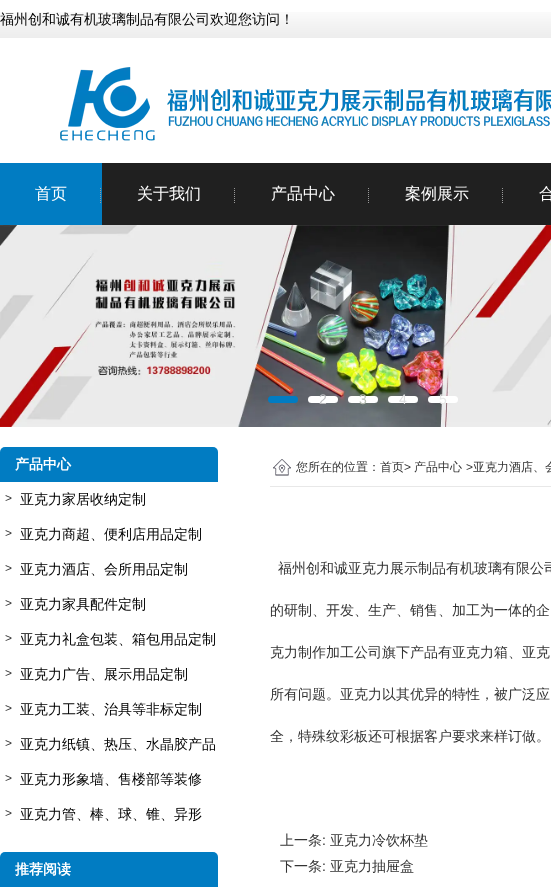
<!DOCTYPE html>
<meta charset="utf-8">
<style>body { margin: 0 } canvas { display: block }</style>
<canvas id="canvas" width="551" height="889"></canvas>
<img id="img1" src="images/1.png" hidden>
<img id="img2" src="images/2.png" hidden>
<img id="img3" src="images/3.png" hidden>
<img id="img4" src="images/4.png" hidden>
<script>
window.onload = function () {
    const canvas = document.getElementById('canvas');
    const context = canvas.getContext('2d');
    context.miterLimit = 4;
    context.fontKerning = 'normal';

    context.fillStyle = 'rgb(255, 255, 255)';
    context.fillRect(0, 0, 551, 889);
    context.drawImage(document.getElementById('img1'), 0, 12, 551, 26);
    context.drawImage(document.getElementById('img2'), 60, 67, 491, 74);
    context.fillStyle = 'rgb(32, 32, 32)';
    context.fillRect(102, 163, 449, 62);
    context.fillStyle = 'rgb(1, 124, 194)';
    context.fillRect(0, 163, 102, 62);
    context.beginPath();
    context.moveTo(100.5, 188);
    context.lineTo(100.5, 203);
    context.strokeStyle = 'rgb(153, 153, 153)';
    context.setLineDash([1, 1]);
    context.stroke();
    context.beginPath();
    context.moveTo(234.5, 188);
    context.lineTo(234.5, 203);
    context.stroke();
    context.beginPath();
    context.moveTo(368.5, 188);
    context.lineTo(368.5, 203);
    context.stroke();
    context.beginPath();
    context.moveTo(502.5, 188);
    context.lineTo(502.5, 203);
    context.stroke();
    context.drawImage(document.getElementById('img3'), 0, 225, 551, 202);
    context.beginPath();
    context.roundRect(268, 396, 30, 7, 3.5);
    context.fill();
    context.fillStyle = 'rgb(255, 255, 255)';
    context.beginPath();
    context.roundRect(308, 396, 30, 7, 3.5);
    context.fill();
    context.beginPath();
    context.roundRect(348, 396, 30, 7, 3.5);
    context.fill();
    context.beginPath();
    context.roundRect(388, 396, 30, 7, 3.5);
    context.fill();
    context.beginPath();
    context.roundRect(428, 396, 30, 7, 3.5);
    context.fill();
    context.fillStyle = 'rgb(1, 124, 194)';
    context.beginPath();
    context.roundRect(0, 447, 218, 35, [5, 5, 0, 0]);
    context.fill();
    context.beginPath();
    context.roundRect(0, 852, 218, 35, [5, 5, 0, 0]);
    context.fill();
    context.drawImage(document.getElementById('img4'), 273, 459, 18, 17);
    context.fillStyle = 'rgb(232, 232, 232)';
    context.fillRect(270, 486, 281, 1);
    context.font = '500 14px WenQuanYi Zen Hei';
    context.fillStyle = 'rgb(0, 0, 0)';
    context.fillText('福州创和诚有机玻璃制品有限公司欢迎您访问！', 0, 24);
    context.font = '500 16px WenQuanYi Zen Hei';
    context.fillStyle = 'rgb(255, 255, 255)';
    context.fillText('首页', 35, 199);
    context.fillText('关于我们', 137, 199);
    context.fillText('产品中心', 271, 199);
    context.fillText('案例展示', 405, 199);
    context.fillText('合', 539, 199);
    context.font = '14px Liberation Sans';
    context.fillStyle = 'rgb(186, 187, 190)';
    context.fillText('2', 319, 404);
    context.fillStyle = 'rgb(185, 192, 180)';
    context.fillText('3', 359, 404);
    context.fillStyle = 'rgb(221, 222, 223)';
    context.fillText('4', 399, 404);
    context.fillStyle = 'rgb(230, 230, 230)';
    context.fillText('5', 439, 404);
    context.font = 'bold 14px WenQuanYi Zen Hei';
    context.fillStyle = 'rgb(255, 255, 255)';
    context.fillText('产品中心', 15, 469);
    context.font = '12px Liberation Sans';
    context.fillStyle = 'rgb(51, 51, 51)';
    context.fillText('>', 5, 502);
    context.font = '500 14px WenQuanYi Zen Hei';
    context.fillStyle = 'rgb(0, 0, 0)';
    context.fillText('亚克力家居收纳定制', 20, 504);
    context.font = '12px Liberation Sans';
    context.fillStyle = 'rgb(51, 51, 51)';
    context.fillText('>', 5, 537);
    context.font = '500 14px WenQuanYi Zen Hei';
    context.fillStyle = 'rgb(0, 0, 0)';
    context.fillText('亚克力商超、便利店用品定制', 20, 539);
    context.font = '12px Liberation Sans';
    context.fillStyle = 'rgb(51, 51, 51)';
    context.fillText('>', 5, 572);
    context.font = '500 14px WenQuanYi Zen Hei';
    context.fillStyle = 'rgb(0, 0, 0)';
    context.fillText('亚克力酒店、会所用品定制', 20, 574);
    context.font = '12px Liberation Sans';
    context.fillStyle = 'rgb(51, 51, 51)';
    context.fillText('>', 5, 607);
    context.font = '500 14px WenQuanYi Zen Hei';
    context.fillStyle = 'rgb(0, 0, 0)';
    context.fillText('亚克力家具配件定制', 20, 609);
    context.font = '12px Liberation Sans';
    context.fillStyle = 'rgb(51, 51, 51)';
    context.fillText('>', 5, 642);
    context.font = '500 14px WenQuanYi Zen Hei';
    context.fillStyle = 'rgb(0, 0, 0)';
    context.fillText('亚克力礼盒包装、箱包用品定制', 20, 644);
    context.font = '12px Liberation Sans';
    context.fillStyle = 'rgb(51, 51, 51)';
    context.fillText('>', 5, 677);
    context.font = '500 14px WenQuanYi Zen Hei';
    context.fillStyle = 'rgb(0, 0, 0)';
    context.fillText('亚克力广告、展示用品定制', 20, 679);
    context.font = '12px Liberation Sans';
    context.fillStyle = 'rgb(51, 51, 51)';
    context.fillText('>', 5, 712);
    context.font = '500 14px WenQuanYi Zen Hei';
    context.fillStyle = 'rgb(0, 0, 0)';
    context.fillText('亚克力工装、治具等非标定制', 20, 714);
    context.font = '12px Liberation Sans';
    context.fillStyle = 'rgb(51, 51, 51)';
    context.fillText('>', 5, 747);
    context.font = '500 14px WenQuanYi Zen Hei';
    context.fillStyle = 'rgb(0, 0, 0)';
    context.fillText('亚克力纸镇、热压、水晶胶产品', 20, 749);
    context.font = '12px Liberation Sans';
    context.fillStyle = 'rgb(51, 51, 51)';
    context.fillText('>', 5, 782);
    context.font = '500 14px WenQuanYi Zen Hei';
    context.fillStyle = 'rgb(0, 0, 0)';
    context.fillText('亚克力形象墙、售楼部等装修', 20, 784);
    context.font = '12px Liberation Sans';
    context.fillStyle = 'rgb(51, 51, 51)';
    context.fillText('>', 5, 817);
    context.font = '500 14px WenQuanYi Zen Hei';
    context.fillStyle = 'rgb(0, 0, 0)';
    context.fillText('亚克力管、棒、球、锥、异形', 20, 819);
    context.font = 'bold 14px WenQuanYi Zen Hei';
    context.fillStyle = 'rgb(255, 255, 255)';
    context.fillText('推荐阅读', 15, 874);
    context.font = '500 12px WenQuanYi Zen Hei';
    context.fillStyle = 'rgb(51, 51, 51)';
    context.fillText('您所在的位置：首页', 296, 471);
    context.font = '12px Liberation Sans';
    context.fillText('>', 404, 471);
    context.font = '500 12px WenQuanYi Zen Hei';
    context.fillText('产品中心', 414, 471);
    context.font = '12px Liberation Sans';
    context.fillText('>', 466, 471);
    context.font = '500 12px WenQuanYi Zen Hei';
    context.fillText('亚克力酒店、会', 473, 471);
    context.font = '500 14px WenQuanYi Zen Hei';
    context.fillText('福州创和诚亚克力展示制品有机玻璃有限公司', 278, 573);
    context.fillText('的研制、开发、生产、销售、加工为一体的企', 270, 615);
    context.fillText('克力制作加工公司旗下产品有亚克力箱、亚克', 270, 657);
    context.fillText('所有问题。亚克力以其优异的特性，被广泛应', 270, 699);
    context.fillText('全，特殊纹彩板还可根据客户要求来样订做。', 270, 741);
    context.fillText('上一条', 280, 845);
    context.font = '14px Liberation Sans';
    context.fillText(':', 322, 845);
    context.font = '500 14px WenQuanYi Zen Hei';
    context.fillText('亚克力冷饮杯垫', 330, 845);
    context.fillText('下一条', 280, 871);
    context.font = '14px Liberation Sans';
    context.fillText(':', 322, 871);
    context.font = '500 14px WenQuanYi Zen Hei';
    context.fillText('亚克力抽屉盒', 330, 871);
};
</script>
